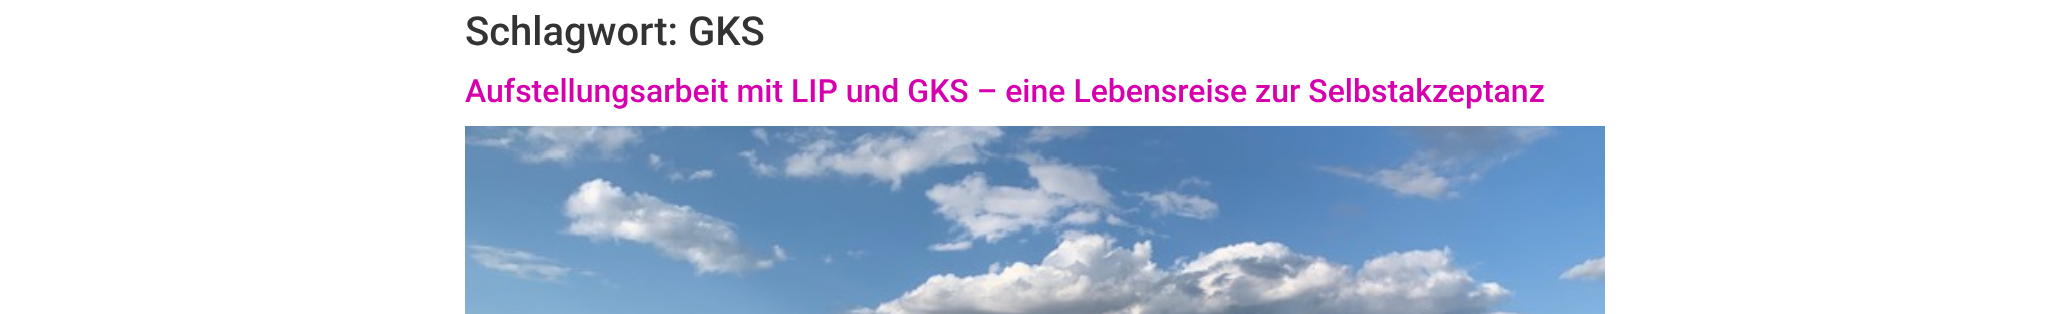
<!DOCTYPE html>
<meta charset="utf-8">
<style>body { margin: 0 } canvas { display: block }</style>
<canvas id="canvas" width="2070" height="314"></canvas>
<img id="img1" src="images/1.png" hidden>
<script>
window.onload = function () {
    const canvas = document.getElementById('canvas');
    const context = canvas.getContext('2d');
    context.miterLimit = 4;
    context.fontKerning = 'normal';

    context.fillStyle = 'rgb(255, 255, 255)';
    context.fillRect(0, 0, 2070, 314);
    context.drawImage(document.getElementById('img1'), 465, 126, 1140, 188);
    context.font = '500 40px Roboto';
    context.fillStyle = 'rgb(51, 51, 51)';
    context.fillText('Schlagwort: GKS', 465, 45);
    context.font = '500 32px Roboto';
    context.fillStyle = 'rgb(214, 0, 174)';
    context.fillText('Aufstellungsarbeit mit LIP und GKS – eine Lebensreise zur Selbstakzeptanz', 465, 102);
};
</script>
